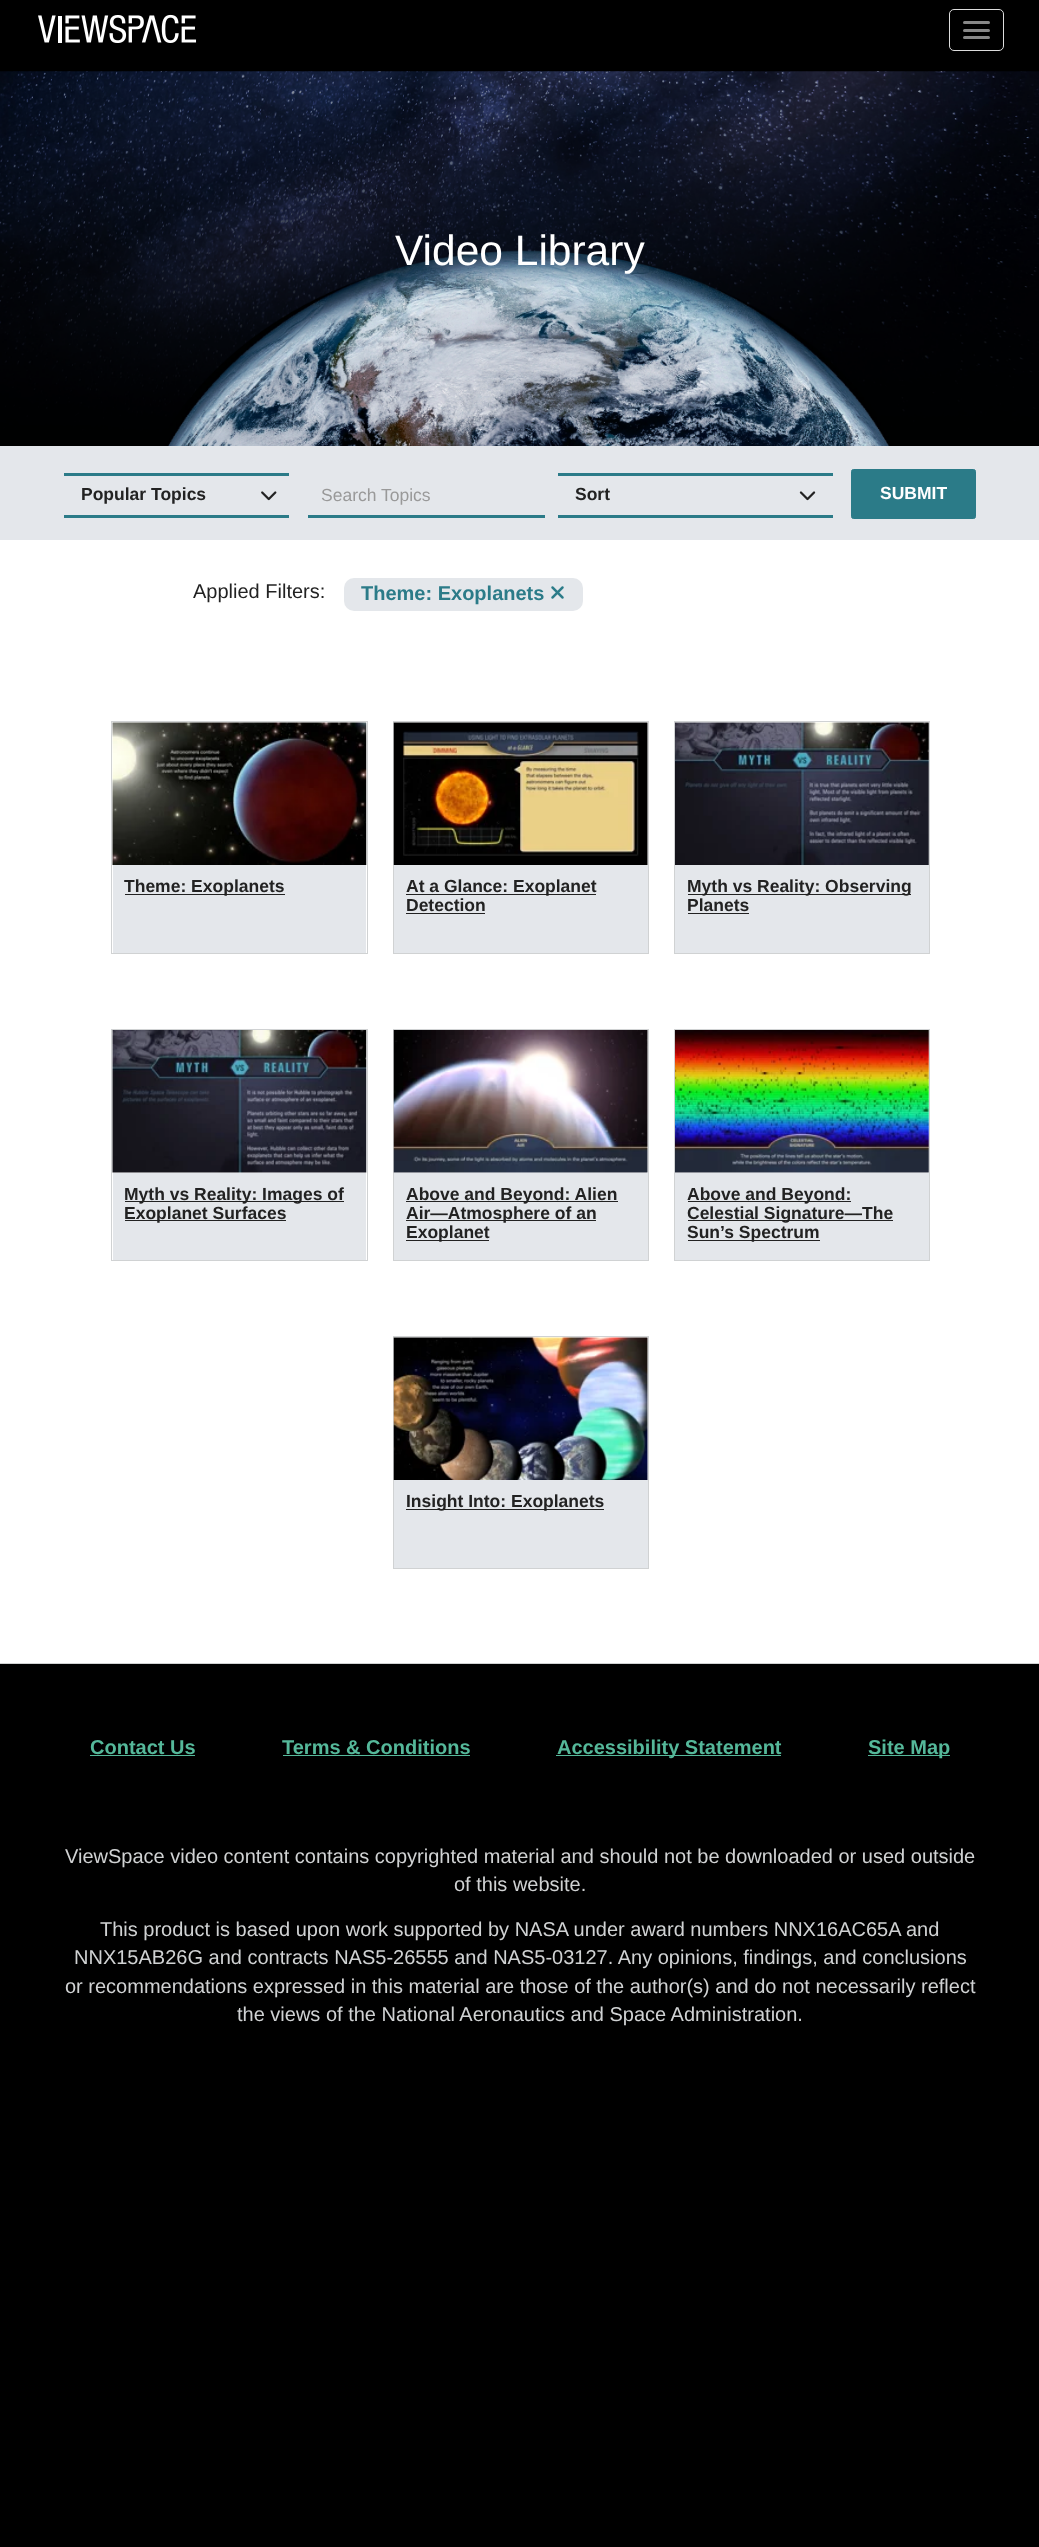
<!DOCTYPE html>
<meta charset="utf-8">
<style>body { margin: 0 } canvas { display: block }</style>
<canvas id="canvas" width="1039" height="2547"></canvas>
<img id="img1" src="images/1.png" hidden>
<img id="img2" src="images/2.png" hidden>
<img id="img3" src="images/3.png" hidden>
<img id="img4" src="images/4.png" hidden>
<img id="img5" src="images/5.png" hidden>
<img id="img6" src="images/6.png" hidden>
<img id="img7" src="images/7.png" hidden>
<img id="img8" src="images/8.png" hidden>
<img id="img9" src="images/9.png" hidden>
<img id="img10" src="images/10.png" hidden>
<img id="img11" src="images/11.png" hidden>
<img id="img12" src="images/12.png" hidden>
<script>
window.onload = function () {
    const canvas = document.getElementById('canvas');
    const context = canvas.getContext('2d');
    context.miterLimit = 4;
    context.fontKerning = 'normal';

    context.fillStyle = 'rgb(0, 0, 0)';
    context.fillRect(0, 0, 1039, 2547);
    context.drawImage(document.getElementById('img1'), 38, 14, 159, 29);
    context.beginPath();
    context.roundRect(949.5, 9.5, 54, 41, 4.5);
    context.strokeStyle = 'rgb(221, 221, 221)';
    context.stroke();
    context.fillStyle = 'rgb(136, 136, 136)';
    context.beginPath();
    context.roundRect(963, 21, 27, 3, 1.5);
    context.fill();
    context.beginPath();
    context.roundRect(963, 29, 27, 3, 1.5);
    context.fill();
    context.beginPath();
    context.roundRect(963, 36, 27, 3, 1.5);
    context.fill();
    context.drawImage(document.getElementById('img2'), 0, 71, 1039, 375);
    context.fillStyle = 'rgb(228, 231, 235)';
    context.fillRect(0, 446, 1039, 94);
    context.fillStyle = 'rgb(43, 123, 136)';
    context.fillRect(64, 473, 225, 3);
    context.fillRect(64, 515, 225, 3);
    context.drawImage(document.getElementById('img3'), 261, 491, 16, 10);
    context.fillRect(308, 515, 237, 3);
    context.fillRect(558, 473, 275, 3);
    context.fillRect(558, 515, 275, 3);
    context.drawImage(document.getElementById('img4'), 799, 491, 17, 10);
    context.beginPath();
    context.roundRect(851.5, 469.5, 124, 49, 2);
    context.fill();
    context.strokeStyle = 'rgb(43, 123, 136)';
    context.stroke();
    context.fillStyle = 'rgb(255, 255, 255)';
    context.fillRect(0, 540, 1039, 1123);
    context.fillStyle = 'rgb(228, 231, 235)';
    context.beginPath();
    context.roundRect(344, 578, 239, 33, 10);
    context.fill();
    context.drawImage(document.getElementById('img5'), 551, 586, 13, 13);
    context.strokeStyle = 'rgb(208, 210, 211)';
    context.strokeRect(111.5, 721.5, 256, 232);
    context.drawImage(document.getElementById('img6'), 112, 722, 255, 143);
    context.fillRect(113, 865, 253, 88);
    context.fillStyle = 'rgb(34, 34, 34)';
    context.fillRect(125, 894, 160, 1);
    context.strokeRect(393.5, 721.5, 255, 232);
    context.drawImage(document.getElementById('img7'), 393, 722, 255, 143);
    context.fillStyle = 'rgb(228, 231, 235)';
    context.fillRect(394, 865, 254, 88);
    context.fillStyle = 'rgb(34, 34, 34)';
    context.fillRect(406, 894, 190, 1);
    context.fillRect(406, 913, 79, 1);
    context.strokeRect(674.5, 721.5, 255, 232);
    context.drawImage(document.getElementById('img8'), 675, 722, 254, 143);
    context.fillStyle = 'rgb(228, 231, 235)';
    context.fillRect(675, 865, 254, 88);
    context.fillStyle = 'rgb(34, 34, 34)';
    context.fillRect(688, 894, 223, 1);
    context.fillRect(688, 913, 61, 1);
    context.strokeRect(111.5, 1029.5, 256, 231);
    context.drawImage(document.getElementById('img9'), 112, 1030, 255, 143);
    context.fillStyle = 'rgb(228, 231, 235)';
    context.fillRect(113, 1173, 253, 87);
    context.fillStyle = 'rgb(34, 34, 34)';
    context.fillRect(125, 1201, 219, 1);
    context.fillRect(125, 1220, 161, 1);
    context.strokeRect(393.5, 1029.5, 255, 231);
    context.drawImage(document.getElementById('img10'), 393, 1030, 255, 143);
    context.fillStyle = 'rgb(228, 231, 235)';
    context.fillRect(394, 1173, 254, 87);
    context.fillStyle = 'rgb(34, 34, 34)';
    context.fillRect(406, 1201, 212, 1);
    context.fillRect(406, 1220, 190, 1);
    context.fillRect(406, 1240, 83, 1);
    context.strokeRect(674.5, 1029.5, 255, 231);
    context.drawImage(document.getElementById('img11'), 675, 1030, 254, 143);
    context.fillStyle = 'rgb(228, 231, 235)';
    context.fillRect(675, 1173, 254, 87);
    context.fillStyle = 'rgb(34, 34, 34)';
    context.fillRect(688, 1201, 163, 1);
    context.fillRect(688, 1220, 205, 1);
    context.fillRect(688, 1240, 132, 1);
    context.strokeRect(393.5, 1336.5, 255, 232);
    context.drawImage(document.getElementById('img12'), 393, 1337, 255, 143);
    context.fillStyle = 'rgb(228, 231, 235)';
    context.fillRect(394, 1480, 254, 88);
    context.fillStyle = 'rgb(34, 34, 34)';
    context.fillRect(406, 1509, 198, 1);
    context.fillStyle = 'rgb(208, 210, 211)';
    context.fillRect(0, 1663, 1039, 1);
    context.fillStyle = 'rgb(85, 184, 154)';
    context.fillRect(90, 1755, 105, 1);
    context.fillRect(283, 1755, 187, 1);
    context.fillRect(556, 1755, 225, 1);
    context.fillRect(868, 1755, 82, 1);
    context.font = '42.5px Liberation Sans';
    context.fillStyle = 'rgb(255, 255, 255)';
    context.fillText('Video Library', 395, 265);
    context.font = 'bold 17.5px Liberation Sans';
    context.fillStyle = 'rgb(34, 34, 34)';
    context.fillText('Popular Topics', 81, 500);
    context.font = '17.5px Liberation Sans';
    context.fillStyle = 'rgb(153, 153, 153)';
    context.fillText('Search Topics', 321, 501);
    context.font = 'bold 17.5px Liberation Sans';
    context.fillStyle = 'rgb(34, 34, 34)';
    context.fillText('Sort', 575, 500);
    context.fillStyle = 'rgb(255, 255, 255)';
    context.fillText('SUBMIT', 880, 499);
    context.font = '20px Liberation Sans';
    context.fillStyle = 'rgb(34, 34, 34)';
    context.fillText('Applied Filters:', 193, 598);
    context.font = 'bold 20px Liberation Sans';
    context.fillStyle = 'rgb(43, 123, 136)';
    context.fillText('Theme: Exoplanets', 361, 600);
    context.font = 'bold 17.5px Liberation Sans';
    context.fillStyle = 'rgb(34, 34, 34)';
    context.fillText('Theme: Exoplanets', 124, 892);
    context.fillText('At a Glance: Exoplanet', 406, 892);
    context.fillText('Detection', 406, 911);
    context.fillText('Myth vs Reality: Observing', 687, 892);
    context.fillText('Planets', 687, 911);
    context.fillText('Myth vs Reality: Images of', 124, 1200);
    context.fillText('Exoplanet Surfaces', 124, 1219);
    context.fillText('Above and Beyond: Alien', 406, 1200);
    context.fillText('Air—Atmosphere of an', 406, 1219);
    context.fillText('Exoplanet', 406, 1238);
    context.fillText('Above and Beyond:', 687, 1200);
    context.fillText('Celestial Signature—The', 687, 1219);
    context.fillText('Sun’s Spectrum', 687, 1238);
    context.fillText('Insight Into: Exoplanets', 406, 1507);
    context.font = 'bold 20px Liberation Sans';
    context.fillStyle = 'rgb(85, 184, 154)';
    context.fillText('Contact Us', 90, 1754);
    context.fillText('Terms & Conditions', 282, 1754);
    context.fillText('Accessibility Statement', 557, 1754);
    context.fillText('Site Map', 868, 1754);
    context.font = '20px Liberation Sans';
    context.fillStyle = 'rgb(208, 210, 211)';
    context.fillText('ViewSpace video content contains copyrighted material and should not be downloaded or used outside', 65, 1863);
    context.fillText('of this website.', 454, 1891);
    context.fillText('This product is based upon work supported by NASA under award numbers NNX16AC65A and', 100, 1936);
    context.fillText('NNX15AB26G and contracts NAS5-26555 and NAS5-03127. Any opinions, findings, and conclusions', 74, 1964);
    context.fillText('or recommendations expressed in this material are those of the author(s) and do not necessarily reflect', 65, 1993);
    context.fillText('the views of the National Aeronautics and Space Administration.', 237, 2021);
};
</script>
